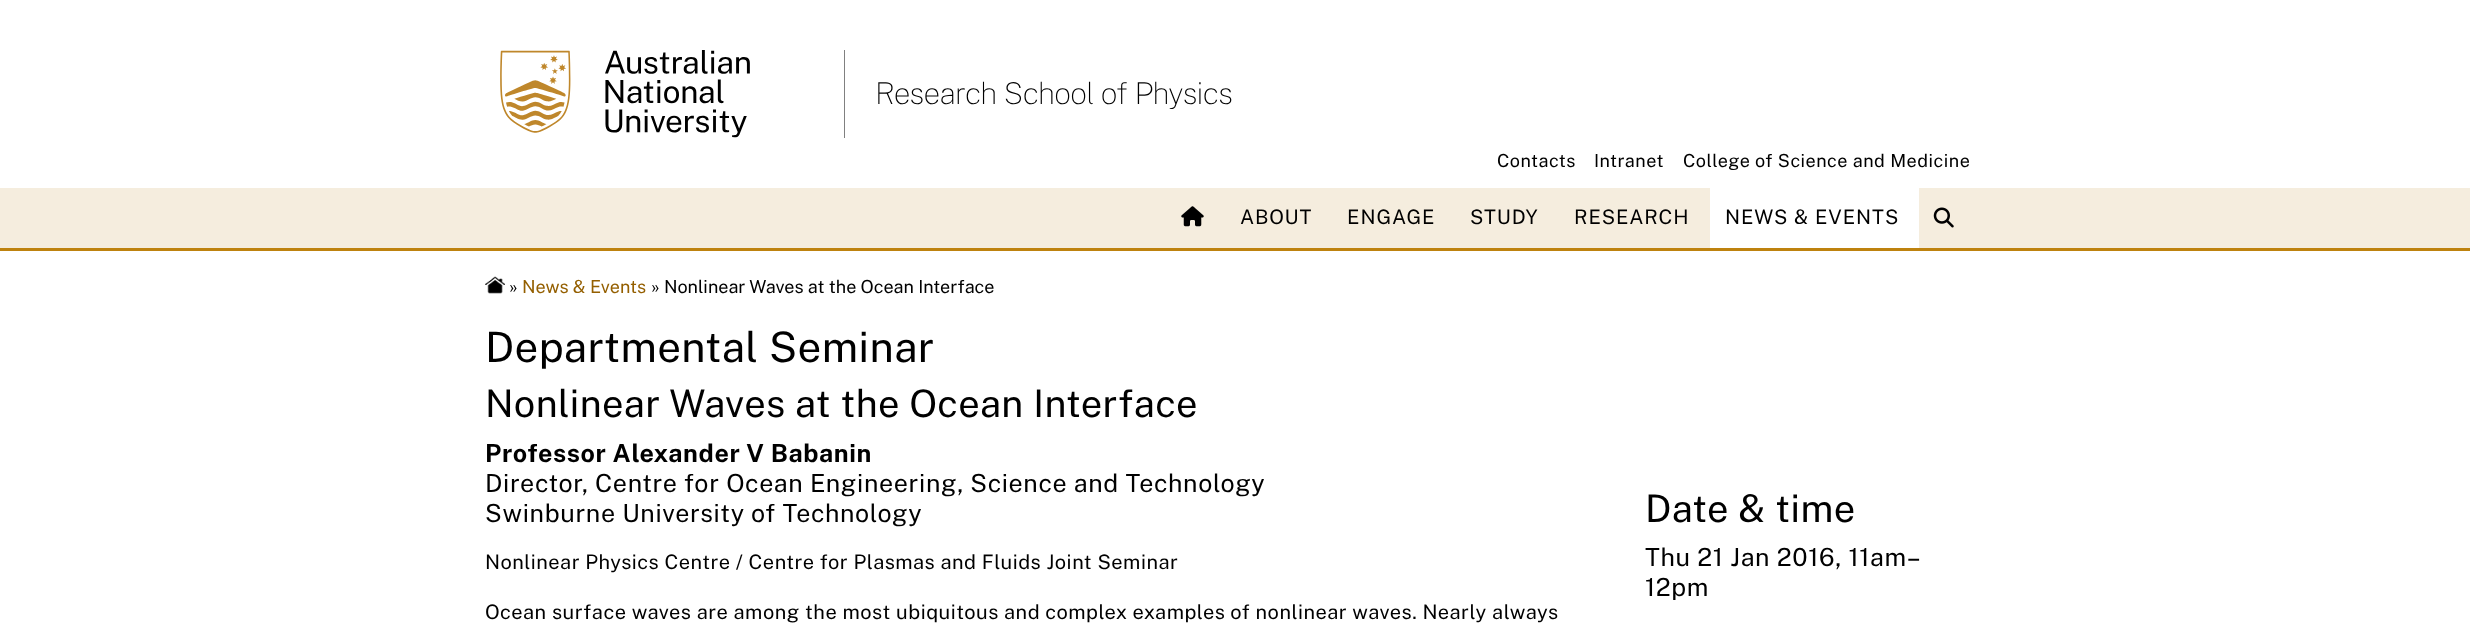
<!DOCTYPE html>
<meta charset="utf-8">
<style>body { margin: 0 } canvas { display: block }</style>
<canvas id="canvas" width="2470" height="642"></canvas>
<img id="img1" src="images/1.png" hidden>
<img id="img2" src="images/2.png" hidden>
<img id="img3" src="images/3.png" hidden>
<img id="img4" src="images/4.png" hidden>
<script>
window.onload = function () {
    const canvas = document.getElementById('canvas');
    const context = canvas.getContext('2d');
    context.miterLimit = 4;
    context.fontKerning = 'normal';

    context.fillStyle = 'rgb(255, 255, 255)';
    context.fillRect(0, 0, 2470, 642);
    context.fillStyle = 'rgb(128, 128, 128)';
    context.fillRect(844, 50, 1, 88);
    context.drawImage(document.getElementById('img1'), 500, 50, 250, 88);
    context.fillStyle = 'rgb(245, 237, 222)';
    context.fillRect(0, 188, 2470, 60);
    context.fillStyle = 'rgb(190, 130, 14)';
    context.fillRect(0, 248, 2470, 3);
    context.drawImage(document.getElementById('img2'), 1181, 206, 23, 21);
    context.fillStyle = 'rgb(255, 255, 255)';
    context.fillRect(1710, 188, 209, 60);
    context.drawImage(document.getElementById('img3'), 1933, 207, 21, 21);
    context.drawImage(document.getElementById('img4'), 485, 276, 20, 18);
    context.letterSpacing = '-0.6px';
    context.font = '100 30px Public Sans';
    context.fillStyle = 'rgb(0, 0, 0)';
    context.fillText('Research School of Physics', 875, 104);
    context.letterSpacing = '0.5px';
    context.font = '18px Public Sans';
    context.fillText('Contacts', 1497, 167);
    context.fillText('Intranet', 1594, 167);
    context.fillText('College of Science and Medicine', 1683, 167);
    context.letterSpacing = '0.9px';
    context.font = '20px Public Sans';
    context.fillText('ABOUT', 1240, 224);
    context.fillText('ENGAGE', 1347, 224);
    context.fillText('STUDY', 1470, 224);
    context.fillText('RESEARCH', 1574, 224);
    context.fillText('NEWS & EVENTS', 1725, 224);
    context.letterSpacing = '0px';
    context.font = '18px Public Sans';
    context.fillText('»', 509, 293);
    context.fillStyle = 'rgb(148, 95, 0)';
    context.fillText('News & Events', 522, 293);
    context.fillStyle = 'rgb(0, 0, 0)';
    context.fillText('» Nonlinear Waves at the Ocean Interface', 651, 293);
    context.letterSpacing = '0.4px';
    context.font = '42px Public Sans';
    context.fillText('Departmental Seminar', 485, 362);
    context.font = '38px Public Sans';
    context.fillText('Nonlinear Waves at the Ocean Interface', 485, 417);
    context.letterSpacing = '0.62px';
    context.font = 'bold 25px Public Sans';
    context.fillText('Professor Alexander V Babanin', 485, 462);
    context.font = '25px Public Sans';
    context.fillText('Director, Centre for Ocean Engineering, Science and Technology', 485, 492);
    context.fillText('Swinburne University of Technology', 485, 522);
    context.letterSpacing = '0.5px';
    context.font = '20px Public Sans';
    context.fillText('Nonlinear Physics Centre / Centre for Plasmas and Fluids Joint Seminar', 485, 569);
    context.fillText('Ocean surface waves are among the most ubiquitous and complex examples of nonlinear waves. Nearly always', 485, 619);
    context.letterSpacing = '0.4px';
    context.font = '38px Public Sans';
    context.fillText('Date & time', 1645, 522);
    context.letterSpacing = '0.62px';
    context.font = '25px Public Sans';
    context.fillText('Thu 21 Jan 2016, 11am–', 1645, 566);
    context.fillText('12pm', 1645, 596);
};
</script>
